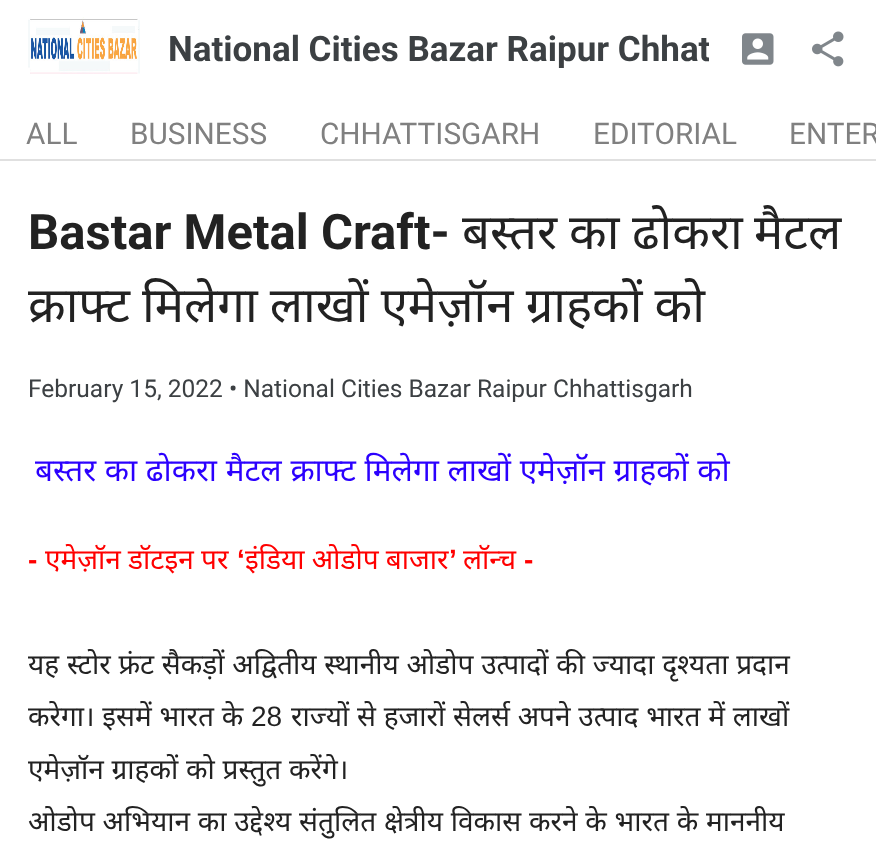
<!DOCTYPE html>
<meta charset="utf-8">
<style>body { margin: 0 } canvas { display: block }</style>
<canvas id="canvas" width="876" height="868"></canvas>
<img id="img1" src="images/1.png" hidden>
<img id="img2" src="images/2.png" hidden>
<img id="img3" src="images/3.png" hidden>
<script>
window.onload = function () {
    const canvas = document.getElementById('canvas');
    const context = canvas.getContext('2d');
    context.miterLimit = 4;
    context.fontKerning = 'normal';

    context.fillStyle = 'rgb(255, 255, 255)';
    context.fillRect(0, 0, 876, 868);
    context.fillStyle = 'rgb(224, 224, 224)';
    context.fillRect(0, 159, 876, 2);
    context.drawImage(document.getElementById('img1'), 28, 17, 112, 57);
    context.drawImage(document.getElementById('img2'), 742, 33, 32, 32);
    context.drawImage(document.getElementById('img3'), 812, 31, 32, 36);
    context.save();
    context.beginPath();
    context.rect(140, 5, 569, 88);
    context.clip();
    context.font = 'bold 35px Roboto';
    context.fillStyle = 'rgb(60, 64, 67)';
    context.fillText('National Cities Bazar Raipur Chhat', 168, 61);
    context.restore();
    context.font = '29.75px Roboto';
    context.fillStyle = 'rgb(128, 128, 128)';
    context.fillText('ALL', 26, 144);
    context.fillText('BUSINESS', 130, 144);
    context.fillText('CHHATTISGARH', 320, 144);
    context.fillText('EDITORIAL', 593, 144);
    context.fillText('ENTER', 789, 144);
    context.font = 'bold 49px Roboto';
    context.fillStyle = 'rgb(34, 34, 34)';
    context.fillText('Bastar Metal Craft-', 28, 249);
    context.font = '49px Noto Sans';
    context.fillText('बस्तर', 462, 249);
    context.fillText('का', 569, 249);
    context.fillText('ढोकरा', 632, 249);
    context.fillText('मैटल', 754, 249);
    context.wordSpacing = '-0.5px';
    context.fillText('क्राफ्ट मिलेगा लाखों एमेज़ॉन ग्राहकों को', 28, 322);
    context.wordSpacing = '0px';
    context.font = '24.5px Roboto';
    context.fillStyle = 'rgb(60, 64, 67)';
    context.fillText('February 15, 2022 • National Cities Bazar Raipur Chhattisgarh', 28, 397);
    context.wordSpacing = '0.5px';
    context.font = '31.5px Noto Sans';
    context.fillStyle = 'rgb(43, 0, 254)';
    context.fillText('बस्तर का ढोकरा मैटल क्राफ्ट मिलेगा लाखों एमेज़ॉन ग्राहकों को', 35, 481);
    context.wordSpacing = '0px';
    context.font = '28px Noto Sans';
    context.fillStyle = 'rgb(255, 0, 0)';
    context.fillText('एमेज़ॉन डॉटइन पर', 45, 569);
    context.fillText('लॉन्च', 463, 569);
    context.font = 'bold 28px Liberation Sans';
    context.fillText('‘', 237, 569);
    context.font = '28px Noto Sans';
    context.fillText('इंडिया ओडोप बाजार', 245, 569);
    context.font = 'bold 28px Liberation Sans';
    context.fillText('’', 449, 569);
    context.fillText('-', 28, 569);
    context.fillText('-', 524, 569);
    context.wordSpacing = '0.5px';
    context.font = '28px Noto Sans';
    context.fillStyle = 'rgb(34, 34, 34)';
    context.fillText('यह स्टोर फ्रंट सैकड़ों अद्वितीय स्थानीय ओडोप उत्पादों की ज्यादा दृश्यता प्रदान', 28, 674);
    context.fillText('करेगा। इसमें भारत के', 28, 726);
    context.wordSpacing = '0px';
    context.font = '28px Liberation Sans';
    context.fillText('28', 251, 726);
    context.wordSpacing = '0.5px';
    context.font = '28px Noto Sans';
    context.fillText('राज्यों से हजारों सेलर्स अपने उत्पाद भारत में लाखों', 291, 726);
    context.fillText('एमेज़ॉन ग्राहकों को प्रस्तुत करेंगे।', 28, 779);
    context.fillText('ओडोप अभियान का उद्देश्य संतुलित क्षेत्रीय विकास करने के भारत के माननीय', 28, 831);
};
</script>
